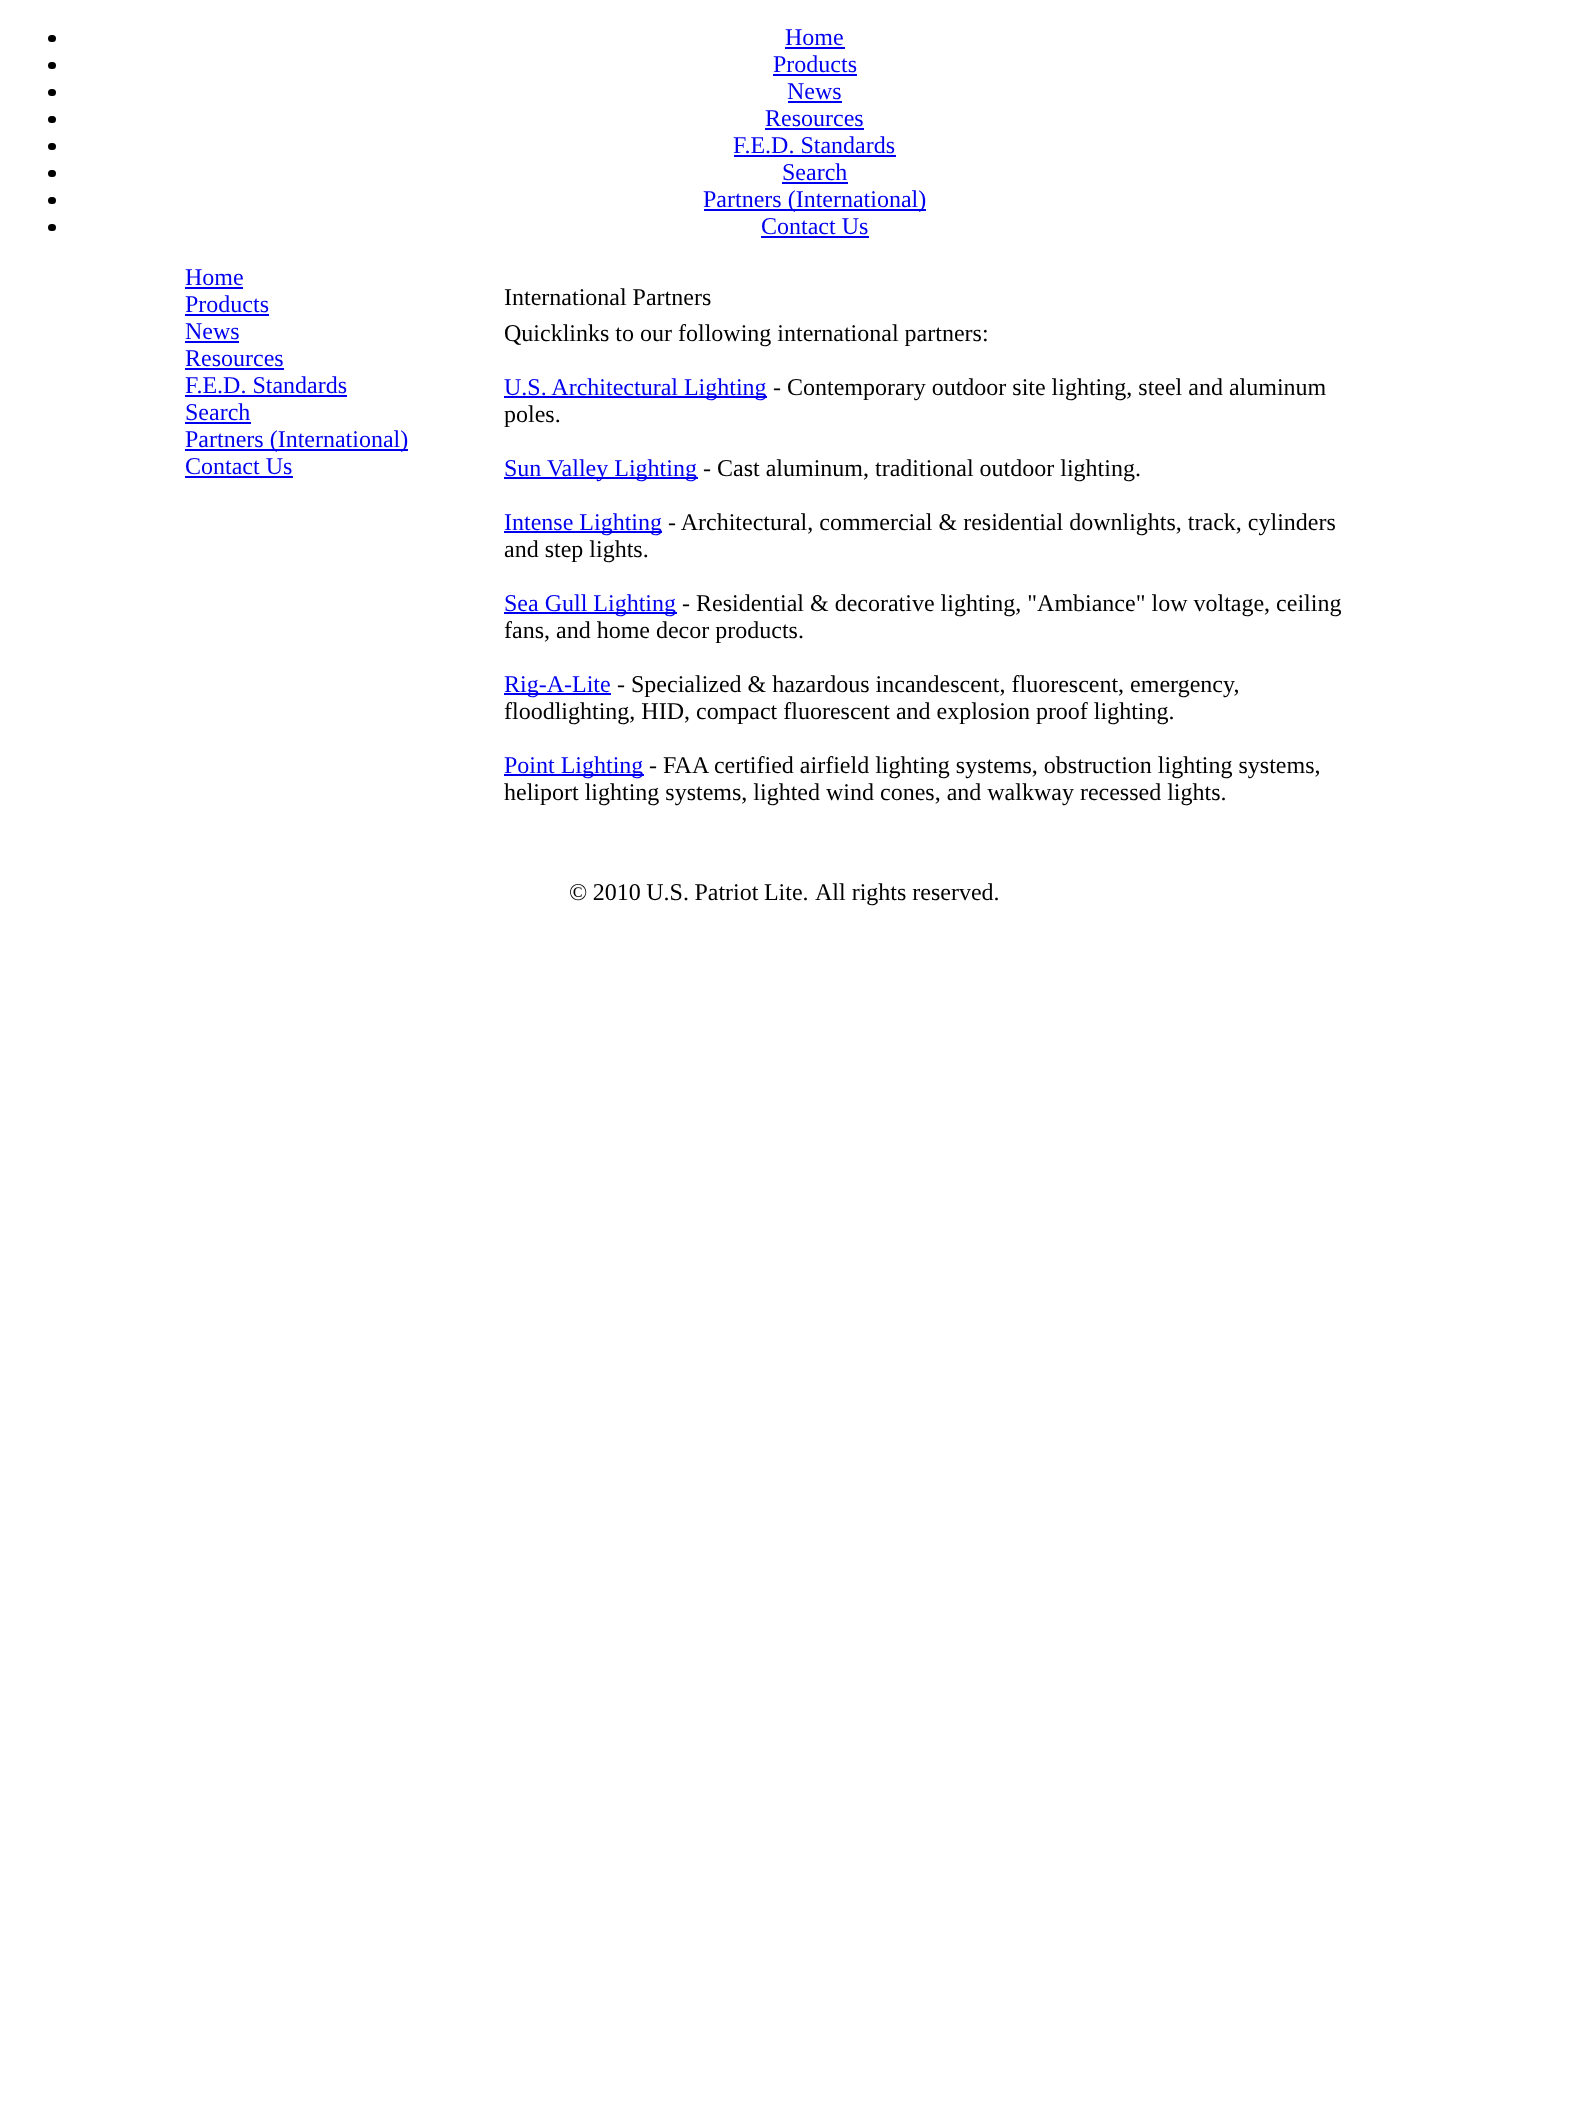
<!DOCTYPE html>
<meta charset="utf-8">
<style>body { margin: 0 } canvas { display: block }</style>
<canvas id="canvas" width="1569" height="2109"></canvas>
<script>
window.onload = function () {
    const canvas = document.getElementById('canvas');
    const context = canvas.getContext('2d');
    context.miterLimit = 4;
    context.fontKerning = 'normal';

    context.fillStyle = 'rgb(255, 255, 255)';
    context.fillRect(0, 0, 1569, 2109);
    context.fillStyle = 'rgb(0, 0, 0)';
    context.beginPath();
    context.roundRect(48, 35, 8, 7, 3.5);
    context.fill();
    context.fillStyle = 'rgb(0, 0, 238)';
    context.fillRect(785, 47, 60, 2);
    context.fillStyle = 'rgb(0, 0, 0)';
    context.beginPath();
    context.roundRect(48, 62, 8, 7, 3.5);
    context.fill();
    context.fillStyle = 'rgb(0, 0, 238)';
    context.fillRect(773, 74, 84, 2);
    context.fillStyle = 'rgb(0, 0, 0)';
    context.beginPath();
    context.roundRect(48, 89, 8, 7, 3.5);
    context.fill();
    context.fillStyle = 'rgb(0, 0, 238)';
    context.fillRect(788, 101, 54, 2);
    context.fillStyle = 'rgb(0, 0, 0)';
    context.beginPath();
    context.roundRect(48, 116, 8, 7, 3.5);
    context.fill();
    context.fillStyle = 'rgb(0, 0, 238)';
    context.fillRect(765, 128, 99, 2);
    context.fillStyle = 'rgb(0, 0, 0)';
    context.beginPath();
    context.roundRect(48, 143, 8, 7, 3.5);
    context.fill();
    context.fillStyle = 'rgb(0, 0, 238)';
    context.fillRect(734, 155, 162, 2);
    context.fillStyle = 'rgb(0, 0, 0)';
    context.beginPath();
    context.roundRect(48, 170, 8, 7, 3.5);
    context.fill();
    context.fillStyle = 'rgb(0, 0, 238)';
    context.fillRect(782, 182, 66, 2);
    context.fillStyle = 'rgb(0, 0, 0)';
    context.beginPath();
    context.roundRect(48, 197, 8, 7, 3.5);
    context.fill();
    context.fillStyle = 'rgb(0, 0, 238)';
    context.fillRect(704, 209, 222, 2);
    context.fillStyle = 'rgb(0, 0, 0)';
    context.beginPath();
    context.roundRect(48, 224, 8, 7, 3.5);
    context.fill();
    context.fillStyle = 'rgb(0, 0, 238)';
    context.fillRect(761, 236, 108, 2);
    context.fillRect(185, 287, 58, 2);
    context.fillRect(185, 314, 84, 2);
    context.fillRect(185, 341, 54, 2);
    context.fillRect(185, 368, 99, 2);
    context.fillRect(185, 395, 162, 2);
    context.fillRect(185, 422, 66, 2);
    context.fillRect(185, 449, 223, 2);
    context.fillRect(185, 476, 108, 2);
    context.fillRect(504, 396, 263, 2);
    context.fillRect(504, 477, 194, 2);
    context.fillRect(504, 531, 158, 2);
    context.fillRect(504, 612, 173, 2);
    context.fillRect(504, 693, 107, 2);
    context.fillRect(504, 774, 140, 2);
    context.font = '24px Liberation Serif';
    context.fillText('Home', 785, 45);
    context.fillText('Products', 773, 72);
    context.fillText('News', 787, 99);
    context.fillText('Resources', 765, 126);
    context.fillText('F.E.D. Standards', 733, 153);
    context.fillText('Search', 782, 180);
    context.fillText('Partners (International)', 703, 207);
    context.fillText('Contact Us', 761, 234);
    context.fillText('Home', 185, 285);
    context.fillText('Products', 185, 312);
    context.fillText('News', 185, 339);
    context.fillText('Resources', 185, 366);
    context.fillText('F.E.D. Standards', 185, 393);
    context.fillText('Search', 185, 420);
    context.fillText('Partners (International)', 185, 447);
    context.fillText('Contact Us', 185, 474);
    context.fillStyle = 'rgb(0, 0, 0)';
    context.fillText('International Partners', 504, 305);
    context.fillText('Quicklinks to our following international partners:', 504, 341);
    context.fillStyle = 'rgb(0, 0, 238)';
    context.fillText('U.S. Architectural Lighting', 504, 395);
    context.fillStyle = 'rgb(0, 0, 0)';
    context.fillText('- Contemporary outdoor site lighting, steel and aluminum', 773, 395);
    context.fillText('poles.', 504, 422);
    context.fillStyle = 'rgb(0, 0, 238)';
    context.fillText('Sun Valley Lighting', 504, 476);
    context.fillStyle = 'rgb(0, 0, 0)';
    context.fillText('- Cast aluminum, traditional outdoor lighting.', 703, 476);
    context.fillStyle = 'rgb(0, 0, 238)';
    context.fillText('Intense Lighting', 504, 530);
    context.fillStyle = 'rgb(0, 0, 0)';
    context.fillText('- Architectural, commercial & residential downlights, track, cylinders', 668, 530);
    context.fillText('and step lights.', 504, 557);
    context.fillStyle = 'rgb(0, 0, 238)';
    context.fillText('Sea Gull Lighting', 504, 611);
    context.fillStyle = 'rgb(0, 0, 0)';
    context.fillText('- Residential & decorative lighting, "Ambiance" low voltage, ceiling', 682, 611);
    context.fillText('fans, and home decor products.', 504, 638);
    context.fillStyle = 'rgb(0, 0, 238)';
    context.fillText('Rig-A-Lite', 504, 692);
    context.fillStyle = 'rgb(0, 0, 0)';
    context.fillText('- Specialized & hazardous incandescent, fluorescent, emergency,', 617, 692);
    context.fillText('floodlighting, HID, compact fluorescent and explosion proof lighting.', 504, 719);
    context.fillStyle = 'rgb(0, 0, 238)';
    context.fillText('Point Lighting', 504, 773);
    context.fillStyle = 'rgb(0, 0, 0)';
    context.fillText('- FAA certified airfield lighting systems, obstruction lighting systems,', 649, 773);
    context.fillText('heliport lighting systems, lighted wind cones, and walkway recessed lights.', 504, 800);
    context.wordSpacing = '-0.5px';
    context.fillText('© 2010 U.S. Patriot Lite.', 569, 900);
    context.wordSpacing = '0px';
    context.fillText('All rights reserved.', 815, 900);
};
</script>
